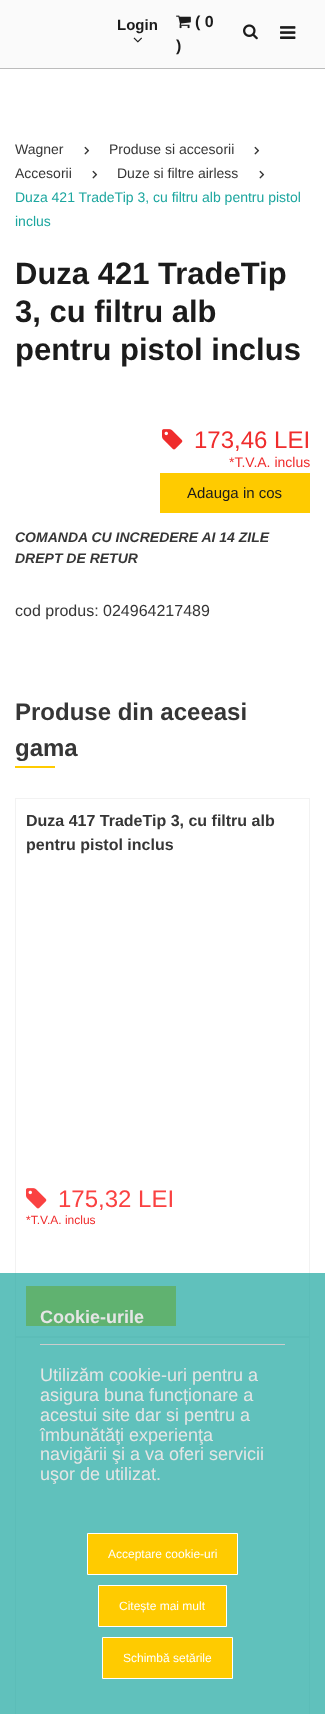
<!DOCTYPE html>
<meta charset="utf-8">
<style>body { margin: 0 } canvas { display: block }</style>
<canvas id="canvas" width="325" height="1714"></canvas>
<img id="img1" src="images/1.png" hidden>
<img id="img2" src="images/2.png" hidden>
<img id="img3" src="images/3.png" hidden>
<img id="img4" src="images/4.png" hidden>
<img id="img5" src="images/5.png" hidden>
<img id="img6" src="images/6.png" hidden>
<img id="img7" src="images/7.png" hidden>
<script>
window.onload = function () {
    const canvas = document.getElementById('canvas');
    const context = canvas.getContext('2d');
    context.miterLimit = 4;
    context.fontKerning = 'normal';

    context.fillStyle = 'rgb(250, 250, 250)';
    context.fillRect(0, 0, 325, 1714);
    context.fillStyle = 'rgb(188, 188, 188)';
    context.fillRect(0, 68, 325, 1);
    context.drawImage(document.getElementById('img1'), 133, 37, 9, 6);
    context.drawImage(document.getElementById('img2'), 176, 15, 15, 14);
    context.drawImage(document.getElementById('img3'), 243, 24, 15, 16);
    context.drawImage(document.getElementById('img4'), 280, 26, 16, 13);
    context.fillStyle = 'rgb(255, 255, 255)';
    context.fillRect(0, 69, 325, 1645);
    context.drawImage(document.getElementById('img5'), 84, 146, 6, 9);
    context.drawImage(document.getElementById('img5'), 254, 146, 6, 9);
    context.drawImage(document.getElementById('img5'), 92, 170, 6, 9);
    context.drawImage(document.getElementById('img5'), 259, 170, 6, 9);
    context.drawImage(document.getElementById('img6'), 162, 429, 21, 21);
    context.fillStyle = 'rgb(255, 203, 0)';
    context.fillRect(160, 473, 150, 40);
    context.fillRect(15, 766, 40, 2);
    context.strokeStyle = 'rgb(242, 242, 242)';
    context.strokeRect(15.5, 798.5, 294, 538);
    context.drawImage(document.getElementById('img7'), 26, 1188, 21, 21);
    context.fillRect(26, 1286, 150, 40);
    context.strokeRect(15.5, 1337.5, 294, 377);
    context.fillStyle = 'rgba(28, 166, 159, 0.7)';
    context.fillRect(0, 1273, 325, 441);
    context.fillStyle = 'rgb(204, 204, 204)';
    context.fillRect(40, 1344, 245, 1);
    context.fillStyle = 'rgb(255, 203, 0)';
    context.beginPath();
    context.rect(87.5, 1533.5, 150, 41);
    context.fill();
    context.strokeStyle = 'rgb(255, 255, 255)';
    context.stroke();
    context.beginPath();
    context.rect(98.5, 1585.5, 128, 41);
    context.fill();
    context.stroke();
    context.beginPath();
    context.rect(102.5, 1637.5, 130, 41);
    context.fill();
    context.stroke();
    context.font = 'bold 15px Liberation Sans';
    context.fillStyle = 'rgb(27, 27, 27)';
    context.fillText('Login', 117, 30);
    context.font = 'bold 16px Liberation Sans';
    context.fillText('( 0', 195, 27);
    context.fillText(')', 176, 51);
    context.font = '14px Liberation Sans';
    context.fillStyle = 'rgb(54, 54, 54)';
    context.fillText('Wagner', 15, 154);
    context.fillText('Produse si accesorii', 109, 154);
    context.fillText('Accesorii', 15, 178);
    context.fillText('Duze si filtre airless', 117, 178);
    context.fillStyle = 'rgb(28, 166, 159)';
    context.fillText('Duza 421 TradeTip 3, cu filtru alb pentru pistol', 15, 202);
    context.fillText('inclus', 15, 226);
    context.font = 'bold 31px Liberation Sans';
    context.fillStyle = 'rgb(27, 27, 27)';
    context.fillText('Duza 421 TradeTip', 15, 284);
    context.fillText('3, cu filtru alb', 15, 322);
    context.fillText('pentru pistol inclus', 15, 360);
    context.font = '24px Liberation Sans';
    context.fillStyle = 'rgb(239, 44, 44)';
    context.fillText('173,46 LEI', 194, 448);
    context.font = '14px Liberation Sans';
    context.fillText('*T.V.A. inclus', 229, 467);
    context.font = '15px Liberation Sans';
    context.fillStyle = 'rgb(27, 27, 27)';
    context.fillText('Adauga in cos', 187, 498);
    context.font = 'italic bold 14px Liberation Sans';
    context.fillStyle = 'rgb(54, 54, 54)';
    context.fillText('COMANDA CU INCREDERE AI 14 ZILE', 15, 542);
    context.fillText('DREPT DE RETUR', 15, 563);
    context.font = '16px Liberation Sans';
    context.fillText('cod produs: 024964217489', 15, 616);
    context.font = 'bold 24px Liberation Sans';
    context.fillText('Produse din aceeasi', 15, 720);
    context.fillText('gama', 15, 756);
    context.font = 'bold 16px Liberation Sans';
    context.fillText('Duza 417 TradeTip 3, cu filtru alb', 26, 826);
    context.fillText('pentru pistol inclus', 26, 850);
    context.font = '24px Liberation Sans';
    context.fillStyle = 'rgb(250, 65, 65)';
    context.fillText('175,32 LEI', 58, 1207);
    context.font = '12px Liberation Sans';
    context.fillStyle = 'rgb(239, 44, 44)';
    context.fillText('*T.V.A. inclus', 26, 1224);
    context.font = 'bold 18px Liberation Sans';
    context.fillStyle = 'rgb(229, 229, 229)';
    context.fillText('Cookie-urile', 40, 1323);
    context.font = '18px Liberation Sans';
    context.fillText('Utilizăm cookie-uri pentru a', 40, 1381);
    context.fillText('asigura buna funcționare a', 40, 1401);
    context.fillText('acestui site dar si pentru a', 40, 1421);
    context.fillText('îmbunătăţi experienţa', 40, 1441);
    context.fillText('navigării şi a va oferi servicii', 40, 1460);
    context.fillText('uşor de utilizat.', 40, 1480);
    context.font = '12px Liberation Sans';
    context.fillStyle = 'rgb(255, 255, 255)';
    context.fillText('Acceptare cookie-uri', 108, 1558);
    context.fillText('Citește mai mult', 119, 1610);
    context.fillText('Schimbă setările', 123, 1662);
};
</script>
